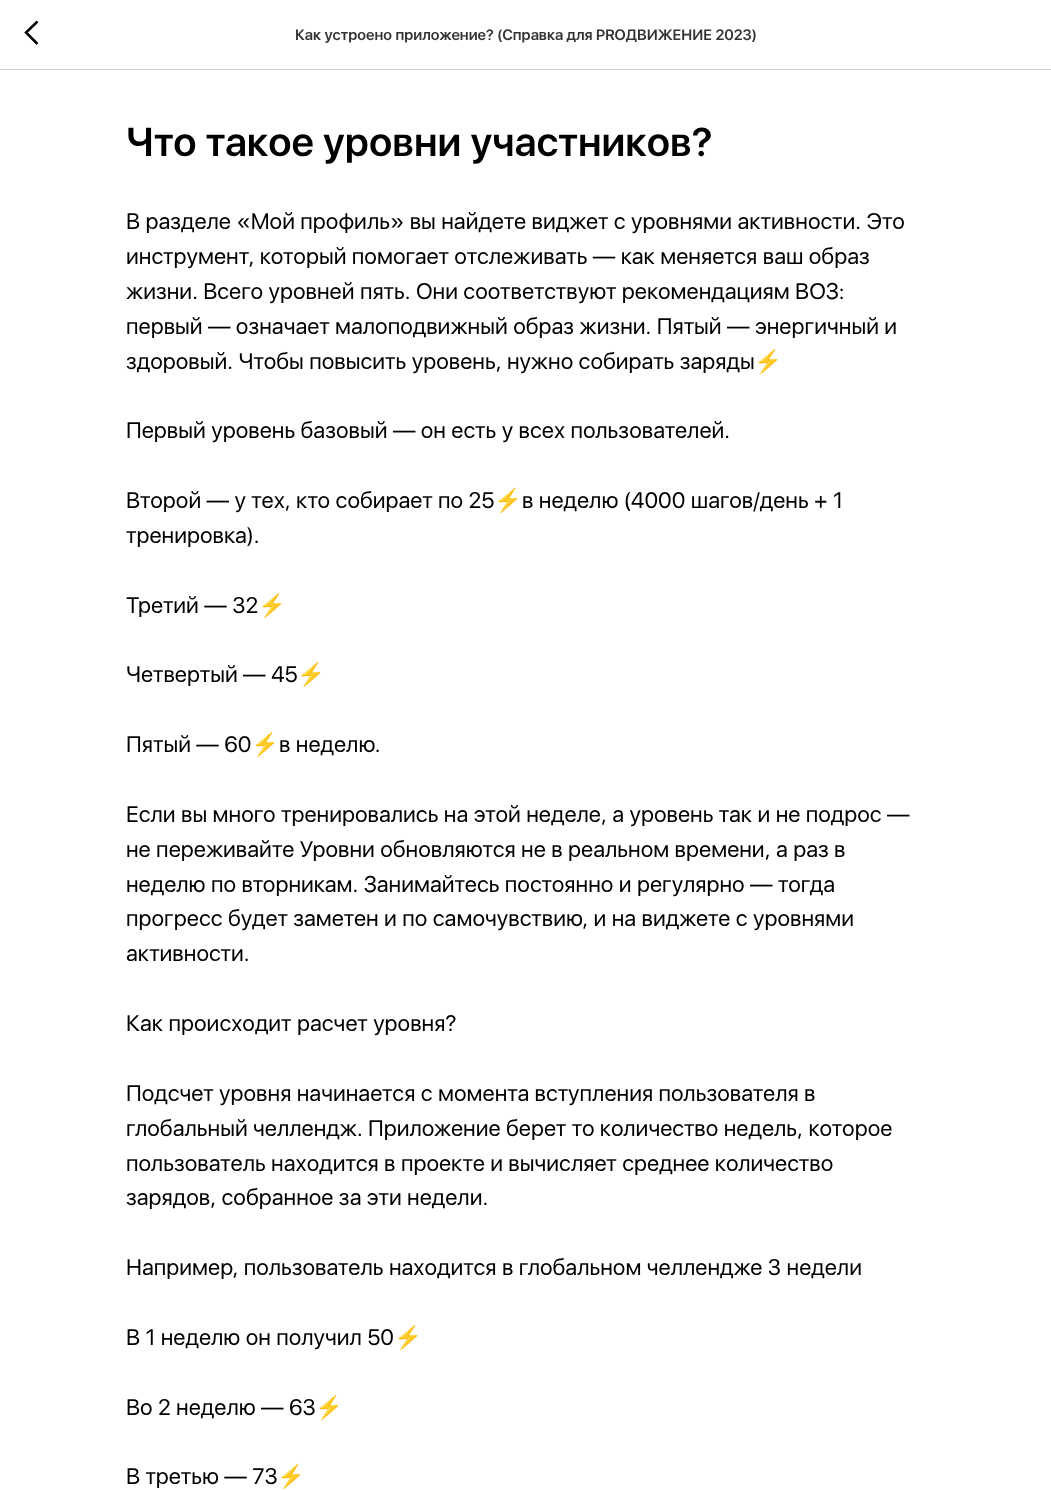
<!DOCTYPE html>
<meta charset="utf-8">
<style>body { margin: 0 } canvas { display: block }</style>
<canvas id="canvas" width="1051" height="1490"></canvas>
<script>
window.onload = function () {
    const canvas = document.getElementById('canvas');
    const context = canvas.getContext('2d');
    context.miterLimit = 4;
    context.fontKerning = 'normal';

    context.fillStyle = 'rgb(255, 255, 255)';
    context.fillRect(0, 0, 1051, 1490);
    context.fillStyle = 'rgb(204, 204, 204)';
    context.fillRect(0, 69, 1051, 1);
    context.beginPath();
    context.moveTo(37.5, 44);
    context.lineTo(26, 32.5);
    context.lineTo(37.5, 21.5);
    context.strokeStyle = 'rgb(0, 0, 0)';
    context.lineWidth = 2.5;
    context.stroke();
    context.font = '600 15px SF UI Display';
    context.fillStyle = 'rgb(51, 51, 51)';
    context.fillText('Как устроено приложение? (Справка для PROДВИЖЕНИЕ 2023)', 295, 40);
    context.font = '600 40px SF UI Display';
    context.fillStyle = 'rgb(0, 0, 0)';
    context.fillText('Что такое уровни участников?', 126, 156);
    context.font = '22.5px SF UI Display';
    context.fillText('В разделе «Мой профиль» вы найдете виджет с уровнями активности. Это', 126, 229);
    context.fillText('инструмент, который помогает отслеживать — как меняется ваш образ', 126, 264);
    context.fillText('жизни. Всего уровней пять. Они соответствуют рекомендациям ВОЗ:', 126, 299);
    context.fillText('первый — означает малоподвижный образ жизни. Пятый — энергичный и', 126, 334);
    context.fillText('здоровый. Чтобы повысить уровень, нужно собирать заряды', 126, 369);
    context.font = '22.5px Noto Color Emoji';
    context.fillText('⚡️', 754, 369);
    context.font = '22.5px SF UI Display';
    context.fillText('Первый уровень базовый — он есть у всех пользователей.', 126, 438);
    context.fillText('Второй — у тех, кто собирает по 25', 126, 508);
    context.font = '22.5px Noto Color Emoji';
    context.fillText('⚡️', 494, 508);
    context.font = '22.5px SF UI Display';
    context.fillText('в неделю (4000 шагов/день + 1', 522, 508);
    context.fillText('тренировка).', 126, 543);
    context.fillText('Третий — 32', 126, 613);
    context.font = '22.5px Noto Color Emoji';
    context.fillText('⚡️', 258, 613);
    context.font = '22.5px SF UI Display';
    context.fillText('Четвертый — 45', 126, 682);
    context.font = '22.5px Noto Color Emoji';
    context.fillText('⚡️', 297, 682);
    context.font = '22.5px SF UI Display';
    context.fillText('Пятый — 60', 126, 752);
    context.font = '22.5px Noto Color Emoji';
    context.fillText('⚡️', 251, 752);
    context.font = '22.5px SF UI Display';
    context.fillText('в неделю.', 279, 752);
    context.fillText('Если вы много тренировались на этой неделе, а уровень так и не подрос —', 126, 822);
    context.fillText('не переживайте Уровни обновляются не в реальном времени, а раз в', 126, 857);
    context.fillText('неделю по вторникам. Занимайтесь постоянно и регулярно — тогда', 126, 892);
    context.fillText('прогресс будет заметен и по самочувствию, и на виджете с уровнями', 126, 926);
    context.fillText('активности.', 126, 961);
    context.fillText('Как происходит расчет уровня?', 126, 1031);
    context.fillText('Подсчет уровня начинается с момента вступления пользователя в', 126, 1101);
    context.fillText('глобальный челлендж. Приложение берет то количество недель, которое', 126, 1136);
    context.fillText('пользователь находится в проекте и вычисляет среднее количество', 126, 1171);
    context.fillText('зарядов, собранное за эти недели.', 126, 1205);
    context.fillText('Например, пользователь находится в глобальном челлендже 3 недели', 126, 1275);
    context.fillText('В 1 неделю он получил 50', 126, 1345);
    context.font = '22.5px Noto Color Emoji';
    context.fillText('⚡', 394, 1345);
    context.font = '22.5px SF UI Display';
    context.fillText('Во 2 неделю — 63', 126, 1415);
    context.font = '22.5px Noto Color Emoji';
    context.fillText('⚡', 315, 1415);
    context.font = '22.5px SF UI Display';
    context.fillText('В третью — 73', 126, 1484);
    context.font = '22.5px Noto Color Emoji';
    context.fillText('⚡', 277, 1484);
};
</script>
